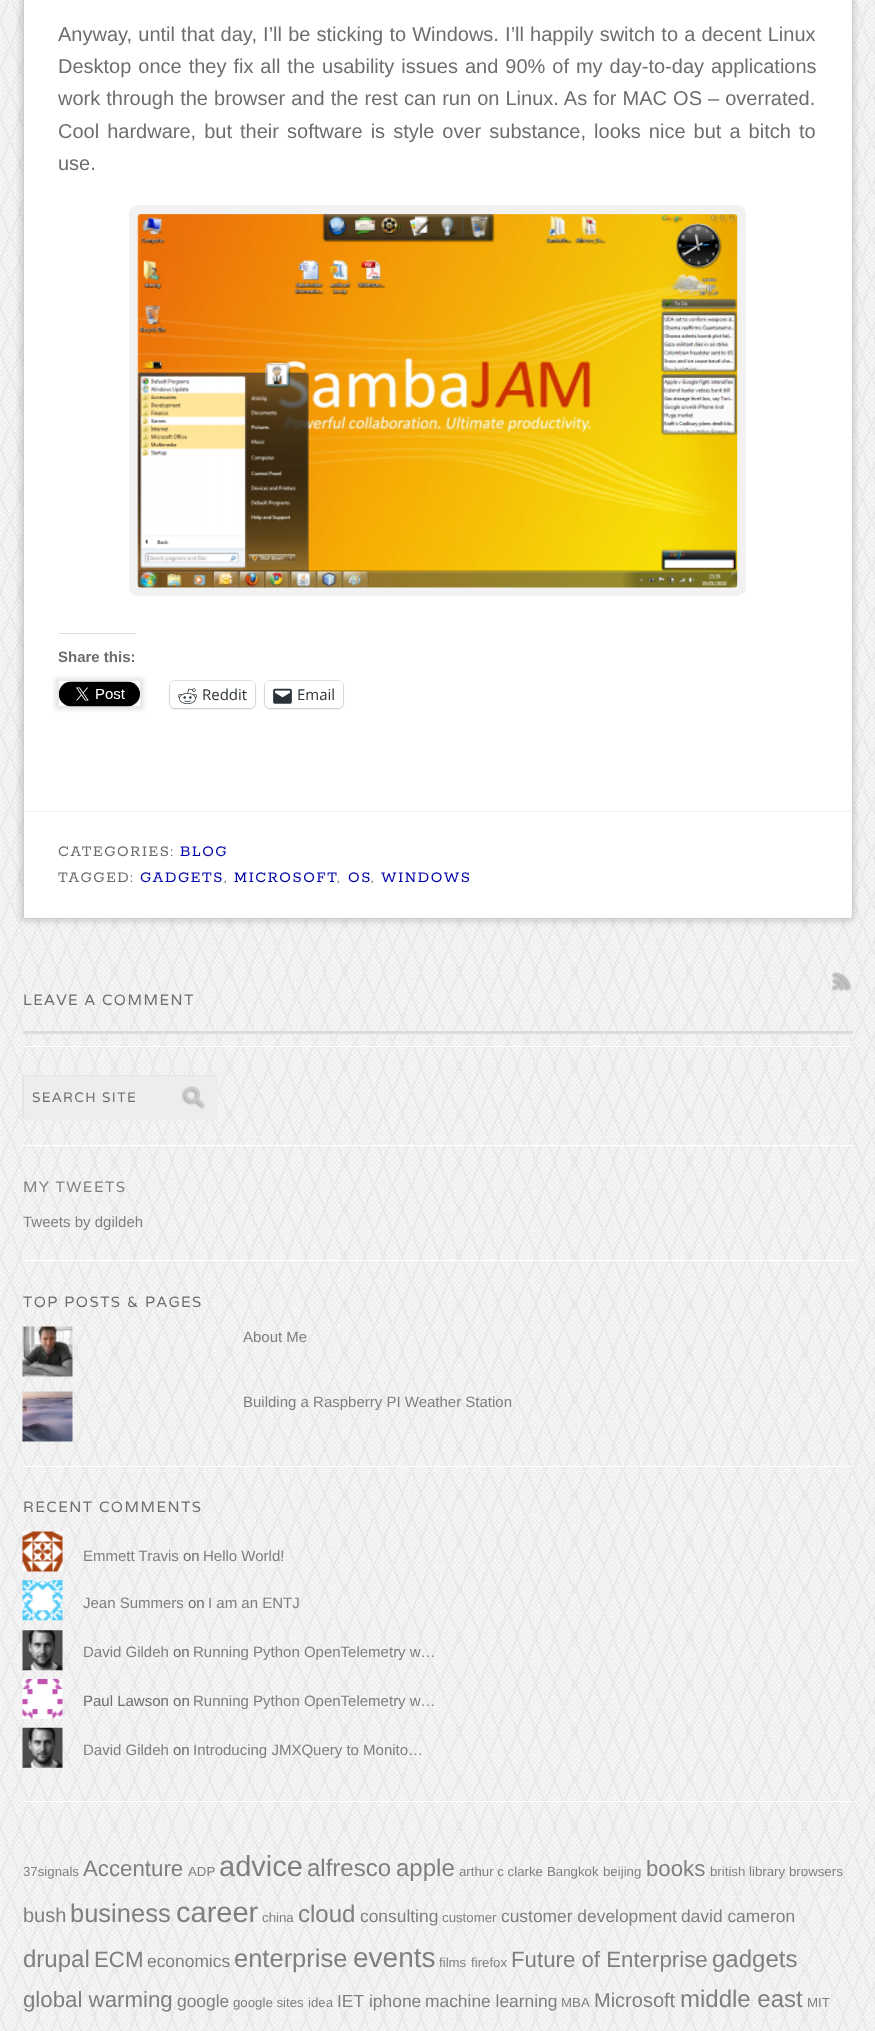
<!DOCTYPE html>
<meta charset="utf-8">
<style>body { margin: 0 } canvas { display: block }</style>
<canvas id="canvas" width="875" height="2031"></canvas>
<img id="img1" src="images/1.png" hidden>
<img id="img2" src="images/2.png" hidden>
<img id="img3" src="images/3.png" hidden>
<img id="img4" src="images/4.png" hidden>
<img id="img5" src="images/5.png" hidden>
<img id="img6" src="images/6.png" hidden>
<img id="img7" src="images/7.png" hidden>
<img id="img8" src="images/8.png" hidden>
<img id="img9" src="images/9.png" hidden>
<img id="img10" src="images/10.png" hidden>
<img id="img11" src="images/11.png" hidden>
<img id="img12" src="images/12.png" hidden>
<img id="img13" src="images/13.png" hidden>
<img id="img14" src="images/14.png" hidden>
<script>
window.onload = function () {
    const canvas = document.getElementById('canvas');
    const context = canvas.getContext('2d');
    context.miterLimit = 4;
    context.fontKerning = 'normal';

    context.fillStyle = 'rgb(255, 255, 255)';
    context.fillRect(0, 0, 875, 2031);
    context.drawImage(document.getElementById('img1'), 0, 0, 875, 2031);
    context.fillStyle = 'rgba(0, 0, 0, 0.1)';
    context.filter = 'blur(2px)';
    context.beginPath();
    context.roundRect(19, -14, 837, 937, 8);
    context.fill();
    context.filter = 'none';
    context.fillStyle = 'rgb(255, 255, 255)';
    context.beginPath();
    context.roundRect(23.5, -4.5, 829, 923, 3.5);
    context.fill();
    context.strokeStyle = 'rgb(204, 204, 204)';
    context.stroke();
    context.fillStyle = 'rgb(242, 242, 242)';
    context.beginPath();
    context.roundRect(129, 205, 617, 391, 9);
    context.fill();
    context.beginPath();
    context.moveTo(138, 205);
    context.lineTo(738, 205);
    context.bezierCurveTo(742, 205, 746, 209, 746, 214);
    context.lineTo(746, 588);
    context.bezierCurveTo(746, 592, 742, 596, 738, 596);
    context.lineTo(138, 596);
    context.bezierCurveTo(133, 596, 129, 592, 129, 588);
    context.lineTo(129, 214);
    context.bezierCurveTo(129, 209, 133, 205, 138, 205);
    context.closePath();
    context.moveTo(138, 206);
    context.lineTo(738, 206);
    context.bezierCurveTo(742, 206, 745, 210, 745, 214);
    context.lineTo(745, 588);
    context.bezierCurveTo(745, 592, 742, 596, 738, 596);
    context.lineTo(138, 596);
    context.bezierCurveTo(133, 596, 130, 592, 130, 588);
    context.lineTo(130, 214);
    context.bezierCurveTo(130, 210, 133, 206, 138, 206);
    context.closePath();
    context.fill('evenodd');
    context.drawImage(document.getElementById('img2'), 137, 214, 601, 374);
    context.beginPath();
    context.roundRect(138.5, 214.5, 599, 373, [3.5, 3.5, 0, 0]);
    context.strokeStyle = 'rgba(255, 255, 255, 0.12)';
    context.stroke();
    context.fillStyle = 'rgb(220, 220, 222)';
    context.fillRect(59, 633, 77, 1);
    context.save();
    context.beginPath();
    context.moveTo(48, 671);
    context.lineTo(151, 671);
    context.lineTo(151, 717);
    context.lineTo(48, 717);
    context.closePath();
    context.moveTo(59, 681);
    context.lineTo(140, 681);
    context.lineTo(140, 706);
    context.lineTo(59, 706);
    context.closePath();
    context.clip('evenodd');
    context.fillStyle = 'rgba(0, 0, 0, 0.1)';
    context.filter = 'blur(2px)';
    context.beginPath();
    context.rect(55, 678, 89, 32);
    context.fill();
    context.filter = 'none';
    context.restore();
    context.drawImage(document.getElementById('img3'), 58, 681, 82, 26);
    context.beginPath();
    context.roundRect(169.5, 680.5, 86, 28, 5.5);
    context.strokeStyle = 'rgb(224, 224, 224)';
    context.stroke();
    context.fillStyle = 'rgba(0, 0, 0, 0.12)';
    context.filter = 'blur(1px)';
    context.beginPath();
    context.roundRect(170, 683, 85, 26, 5);
    context.fill();
    context.filter = 'none';
    context.fillStyle = 'rgb(255, 255, 255)';
    context.beginPath();
    context.roundRect(170, 681, 85, 27, 5);
    context.fill();
    context.drawImage(document.getElementById('img4'), 178, 688, 19, 17);
    context.beginPath();
    context.roundRect(264.5, 680.5, 79, 28, 5.5);
    context.stroke();
    context.fillStyle = 'rgba(0, 0, 0, 0.12)';
    context.filter = 'blur(1px)';
    context.beginPath();
    context.roundRect(265, 683, 78, 26, 5);
    context.fill();
    context.filter = 'none';
    context.fillStyle = 'rgb(255, 255, 255)';
    context.beginPath();
    context.roundRect(265, 681, 78, 27, 5);
    context.fill();
    context.drawImage(document.getElementById('img5'), 273, 688, 19, 16);
    context.fillRect(24, 915, 827, 3);
    context.fillStyle = 'rgb(242, 242, 242)';
    context.fillRect(24, 811, 827, 1);
    context.drawImage(document.getElementById('img6'), 832, 971, 20, 21);
    context.fillStyle = 'rgb(220, 220, 222)';
    context.fillRect(23, 1031, 830, 3);
    context.fillStyle = 'rgb(255, 255, 255)';
    context.fillRect(23, 1046, 830, 1);
    context.fillStyle = 'rgb(237, 237, 237)';
    context.beginPath();
    context.roundRect(23, 1075, 195, 45, 4);
    context.fill();
    context.drawImage(document.getElementById('img7'), 181, 1086, 24, 23);
    context.fillStyle = 'rgb(229, 229, 229)';
    context.beginPath();
    context.moveTo(26, 1075);
    context.lineTo(214, 1075);
    context.bezierCurveTo(216, 1075, 218, 1077, 218, 1079);
    context.lineTo(218, 1116);
    context.bezierCurveTo(218, 1118, 216, 1120, 214, 1120);
    context.lineTo(26, 1120);
    context.bezierCurveTo(24, 1120, 22, 1118, 22, 1116);
    context.lineTo(22, 1079);
    context.bezierCurveTo(22, 1077, 24, 1075, 26, 1075);
    context.closePath();
    context.moveTo(26, 1076);
    context.lineTo(214, 1076);
    context.bezierCurveTo(216, 1076, 218, 1077, 218, 1079);
    context.lineTo(218, 1116);
    context.bezierCurveTo(218, 1118, 216, 1120, 214, 1120);
    context.lineTo(26, 1120);
    context.bezierCurveTo(25, 1120, 24, 1118, 24, 1116);
    context.lineTo(24, 1079);
    context.bezierCurveTo(24, 1077, 25, 1076, 26, 1076);
    context.closePath();
    context.fill('evenodd');
    context.fillStyle = 'rgb(255, 255, 255)';
    context.fillRect(23, 1145, 830, 1);
    context.fillRect(23, 1260, 830, 1);
    context.drawImage(document.getElementById('img8'), 22, 1326, 51, 51);
    context.drawImage(document.getElementById('img9'), 22, 1391, 51, 51);
    context.fillRect(23, 1466, 830, 1);
    context.drawImage(document.getElementById('img10'), 22, 1531, 41, 41);
    context.drawImage(document.getElementById('img11'), 22, 1580, 41, 41);
    context.drawImage(document.getElementById('img12'), 22, 1630, 41, 41);
    context.drawImage(document.getElementById('img13'), 22, 1679, 41, 40);
    context.drawImage(document.getElementById('img14'), 22, 1727, 41, 41);
    context.fillRect(23, 1801, 830, 1);
    context.wordSpacing = '0.6px';
    context.font = '20px Liberation Sans';
    context.fillStyle = 'rgb(109, 109, 109)';
    context.fillText('Anyway, until that day, I’ll be sticking to Windows. I’ll happily switch to a decent Linux', 58, 41);
    context.wordSpacing = '1.4px';
    context.fillText('Desktop once they fix all the usability issues and 90% of my day-to-day applications', 58, 73);
    context.wordSpacing = '0.5px';
    context.fillText('work through the browser and the rest can run on Linux. As for MAC OS – overrated.', 58, 105);
    context.wordSpacing = '2.5px';
    context.fillText('Cool hardware, but their software is style over substance, looks nice but a bitch to', 58, 138);
    context.wordSpacing = '0px';
    context.fillText('use.', 58, 170);
    context.font = 'bold 15px Liberation Sans';
    context.fillText('Share this:', 58, 662);
    context.font = '15px Open Sans';
    context.fillStyle = 'rgb(44, 51, 56)';
    context.fillText('Reddit', 202, 700);
    context.fillText('Email', 297, 700);
    context.letterSpacing = '1.6px';
    context.font = '16.25px Rokkitt';
    context.fillStyle = 'rgb(109, 109, 109)';
    context.fillText('CATEGORIES:', 58, 856);
    context.fillStyle = 'rgb(0, 0, 170)';
    context.fillText('BLOG', 180, 856);
    context.fillStyle = 'rgb(109, 109, 109)';
    context.fillText('TAGGED:', 58, 882);
    context.fillStyle = 'rgb(0, 0, 170)';
    context.fillText('GADGETS', 140, 882);
    context.fillStyle = 'rgb(109, 109, 109)';
    context.fillText(',', 224, 882);
    context.fillStyle = 'rgb(0, 0, 170)';
    context.fillText('MICROSOFT', 234, 882);
    context.fillStyle = 'rgb(109, 109, 109)';
    context.fillText(',', 337, 882);
    context.fillStyle = 'rgb(0, 0, 170)';
    context.fillText('OS', 348, 882);
    context.fillStyle = 'rgb(109, 109, 109)';
    context.fillText(',', 371, 882);
    context.fillStyle = 'rgb(0, 0, 170)';
    context.fillText('WINDOWS', 381, 882);
    context.letterSpacing = '1.5px';
    context.font = '15px Varela';
    context.fillStyle = 'rgb(109, 109, 109)';
    context.fillText('LEAVE A COMMENT', 23, 1005);
    context.letterSpacing = '1.4px';
    context.font = '13.75px Varela';
    context.fillText('SEARCH SITE', 32, 1102);
    context.letterSpacing = '1.5px';
    context.font = '15px Varela';
    context.fillStyle = 'rgb(127, 127, 127)';
    context.fillText('MY TWEETS', 23, 1192);
    context.letterSpacing = '0px';
    context.font = '15px Liberation Sans';
    context.fillText('Tweets by dgildeh', 23, 1227);
    context.letterSpacing = '1.5px';
    context.font = '15px Varela';
    context.fillStyle = 'rgb(109, 109, 109)';
    context.fillText('TOP POSTS & PAGES', 23, 1307);
    context.letterSpacing = '0px';
    context.font = '15px Liberation Sans';
    context.fillStyle = 'rgb(127, 127, 127)';
    context.fillText('About Me', 243, 1342);
    context.fillText('Building a Raspberry PI Weather Station', 243, 1407);
    context.letterSpacing = '1.5px';
    context.font = '15px Varela';
    context.fillStyle = 'rgb(109, 109, 109)';
    context.fillText('RECENT COMMENTS', 23, 1512);
    context.letterSpacing = '0px';
    context.font = '15px Liberation Sans';
    context.fillStyle = 'rgb(127, 127, 127)';
    context.fillText('Emmett Travis', 83, 1561);
    context.fillStyle = 'rgb(109, 109, 109)';
    context.fillText('on', 183, 1561);
    context.fillStyle = 'rgb(127, 127, 127)';
    context.fillText('Hello World!', 203, 1561);
    context.fillText('Jean Summers', 83, 1608);
    context.fillStyle = 'rgb(109, 109, 109)';
    context.fillText('on', 188, 1608);
    context.fillStyle = 'rgb(127, 127, 127)';
    context.fillText('I am an ENTJ', 208, 1608);
    context.fillText('David Gildeh', 83, 1657);
    context.fillStyle = 'rgb(109, 109, 109)';
    context.fillText('on', 173, 1657);
    context.fillStyle = 'rgb(127, 127, 127)';
    context.fillText('Running Python OpenTelemetry w…', 193, 1657);
    context.fillStyle = 'rgb(109, 109, 109)';
    context.fillText('Paul Lawson on', 83, 1706);
    context.fillStyle = 'rgb(127, 127, 127)';
    context.fillText('Running Python OpenTelemetry w…', 193, 1706);
    context.fillText('David Gildeh', 83, 1755);
    context.fillStyle = 'rgb(109, 109, 109)';
    context.fillText('on', 173, 1755);
    context.fillStyle = 'rgb(127, 127, 127)';
    context.fillText('Introducing JMXQuery to Monito…', 193, 1755);
    context.font = '13.25px Liberation Sans';
    context.fillText('37signals', 23, 1876);
    context.font = '22.25px Liberation Sans';
    context.fillText('Accenture', 83, 1876);
    context.font = '13.25px Liberation Sans';
    context.fillText('ADP', 188, 1876);
    context.font = '29px Liberation Sans';
    context.fillText('advice', 219, 1876);
    context.font = '24px Liberation Sans';
    context.fillText('alfresco', 307, 1876);
    context.fillText('apple', 396, 1876);
    context.font = '13.25px Liberation Sans';
    context.fillText('arthur c clarke', 459, 1876);
    context.fillText('Bangkok', 547, 1876);
    context.fillText('beijing', 603, 1876);
    context.font = '22.25px Liberation Sans';
    context.fillText('books', 646, 1876);
    context.font = '13.25px Liberation Sans';
    context.fillText('british library', 710, 1876);
    context.fillText('browsers', 789, 1876);
    context.font = '20px Liberation Sans';
    context.fillText('bush', 23, 1922);
    context.font = '25.5px Liberation Sans';
    context.fillText('business', 70, 1922);
    context.font = '29px Liberation Sans';
    context.fillText('career', 176, 1922);
    context.font = '13.25px Liberation Sans';
    context.fillText('china', 262, 1922);
    context.font = '24px Liberation Sans';
    context.fillText('cloud', 298, 1922);
    context.font = '17.4px Liberation Sans';
    context.fillText('consulting', 360, 1922);
    context.font = '13.25px Liberation Sans';
    context.fillText('customer', 442, 1922);
    context.font = '17.4px Liberation Sans';
    context.fillText('customer development', 501, 1922);
    context.fillText('david cameron', 681, 1922);
    context.font = '24px Liberation Sans';
    context.fillText('drupal', 23, 1967);
    context.font = '22.25px Liberation Sans';
    context.fillText('ECM', 94, 1967);
    context.font = '17.4px Liberation Sans';
    context.fillText('economics', 147, 1967);
    context.font = '25.5px Liberation Sans';
    context.fillText('enterprise', 234, 1967);
    context.font = '28px Liberation Sans';
    context.fillText('events', 353, 1967);
    context.font = '13.25px Liberation Sans';
    context.fillText('films', 439, 1967);
    context.fillText('firefox', 471, 1967);
    context.font = '22.25px Liberation Sans';
    context.fillText('Future of Enterprise', 511, 1967);
    context.font = '24px Liberation Sans';
    context.fillText('gadgets', 712, 1967);
    context.font = '22.25px Liberation Sans';
    context.fillText('global warming', 23, 2007);
    context.font = '17.4px Liberation Sans';
    context.fillText('google', 177, 2007);
    context.font = '13.25px Liberation Sans';
    context.fillText('google sites', 233, 2007);
    context.fillText('idea', 308, 2007);
    context.font = '17.4px Liberation Sans';
    context.fillText('IET', 337, 2007);
    context.fillText('iphone', 369, 2007);
    context.fillText('machine learning', 425, 2007);
    context.font = '13.25px Liberation Sans';
    context.fillText('MBA', 561, 2007);
    context.font = '20px Liberation Sans';
    context.fillText('Microsoft', 594, 2007);
    context.font = '24px Liberation Sans';
    context.fillText('middle east', 680, 2007);
    context.font = '13.25px Liberation Sans';
    context.fillText('MIT', 807, 2007);
};
</script>
